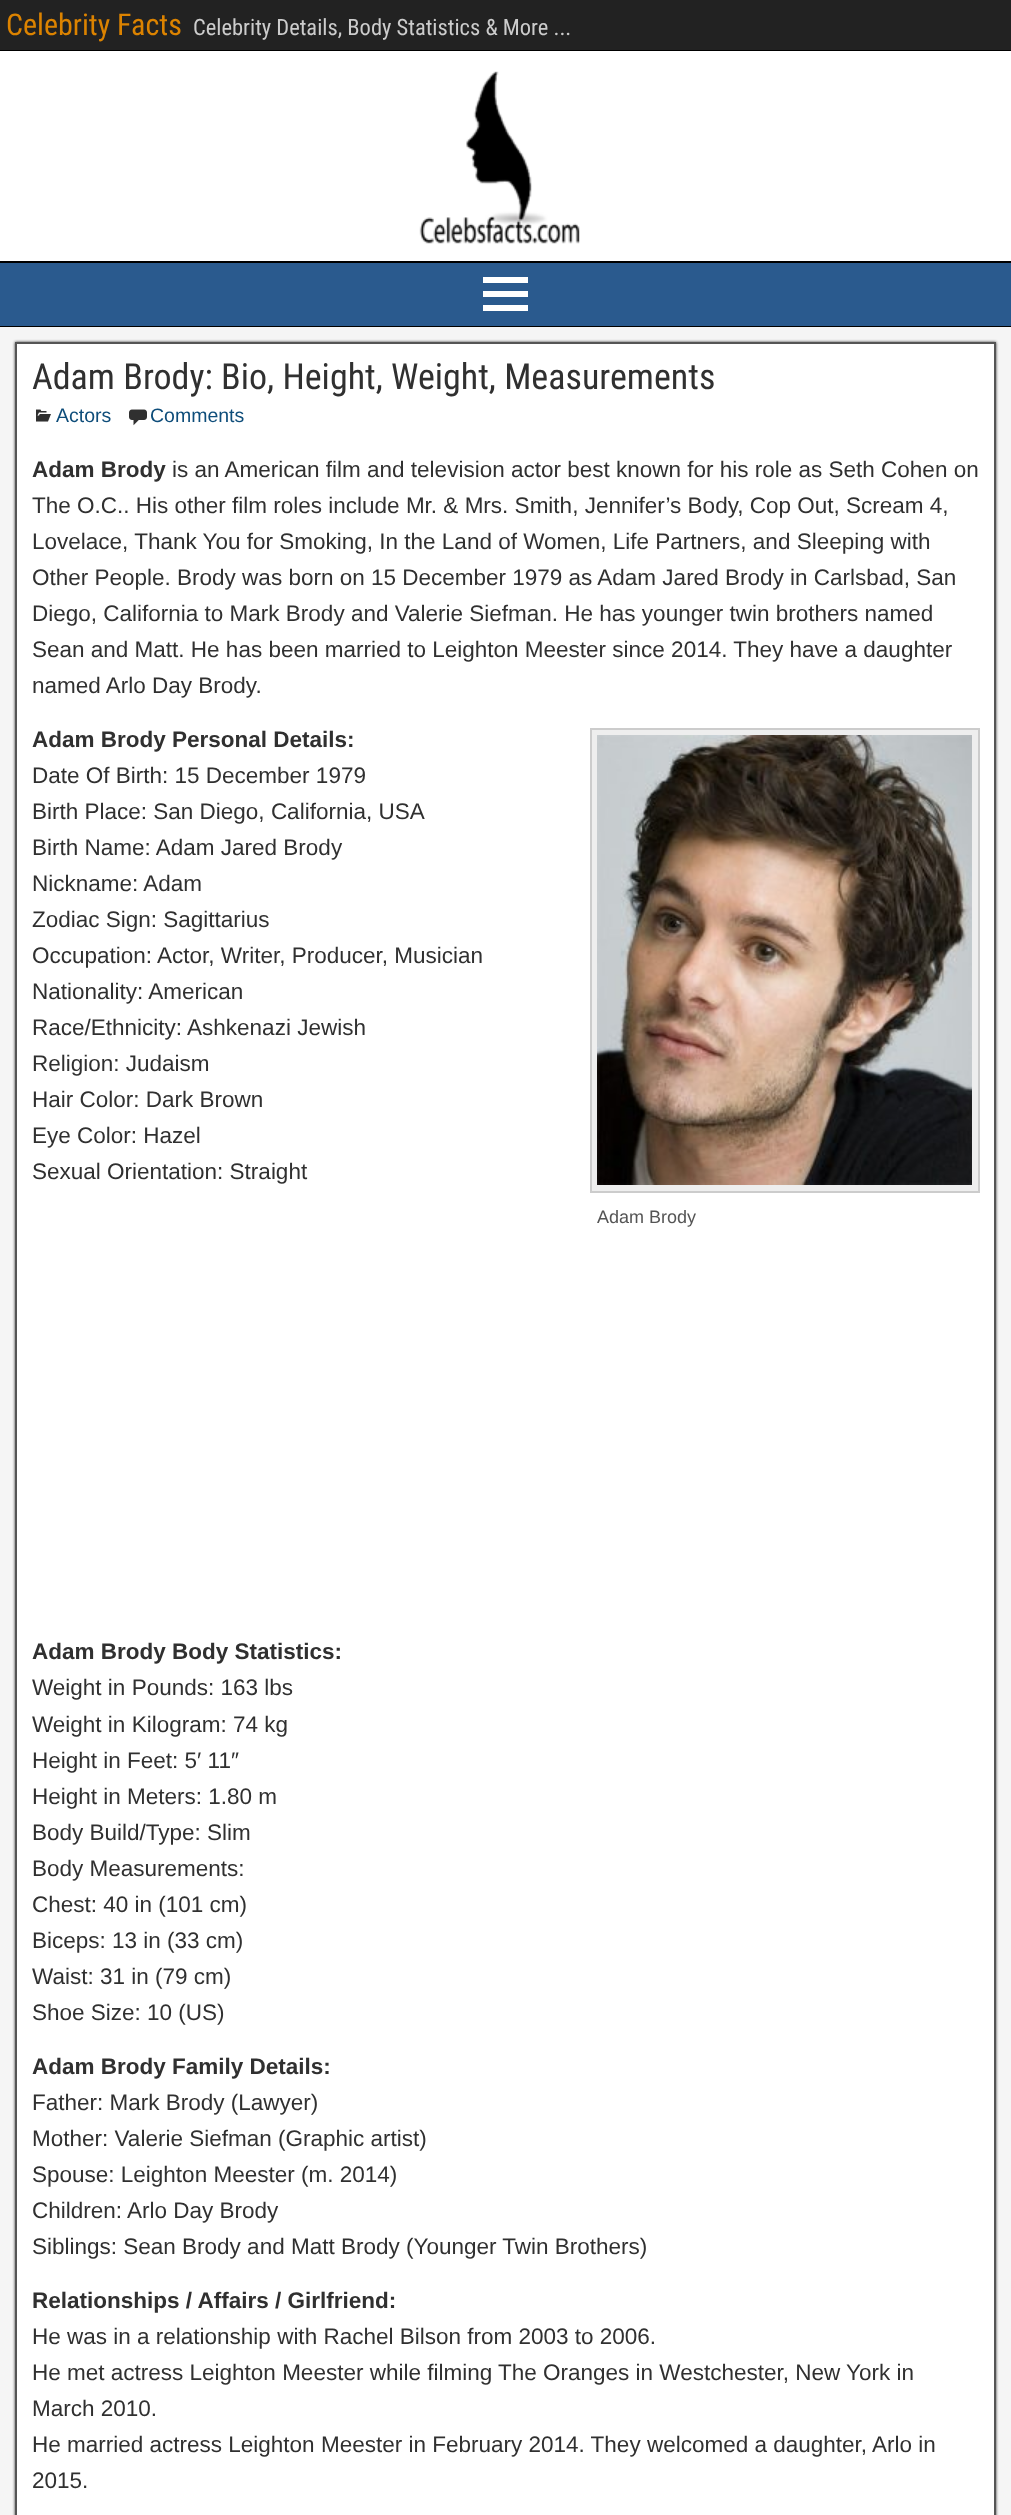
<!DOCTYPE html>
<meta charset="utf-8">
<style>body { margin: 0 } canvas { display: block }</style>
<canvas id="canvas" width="1011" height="2515"></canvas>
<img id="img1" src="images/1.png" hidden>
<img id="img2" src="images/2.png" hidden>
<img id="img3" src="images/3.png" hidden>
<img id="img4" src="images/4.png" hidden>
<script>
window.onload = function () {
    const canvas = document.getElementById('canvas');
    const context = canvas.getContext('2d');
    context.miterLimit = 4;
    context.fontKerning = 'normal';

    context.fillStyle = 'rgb(34, 34, 34)';
    context.fillRect(0, 0, 1011, 2515);
    context.fillStyle = 'rgb(0, 0, 0)';
    context.fillRect(0, 50, 1011, 1);
    context.fillStyle = 'rgb(255, 255, 255)';
    context.fillRect(0, 51, 1011, 210);
    context.fillStyle = 'rgb(0, 0, 0)';
    context.fillRect(0, 261, 1011, 2);
    context.drawImage(document.getElementById('img1'), 419, 71, 161, 173);
    context.fillStyle = 'rgb(42, 90, 142)';
    context.fillRect(0, 263, 1011, 63);
    context.fillStyle = 'rgb(0, 0, 0)';
    context.fillRect(0, 326, 1011, 1);
    context.fillStyle = 'rgb(255, 255, 255)';
    context.beginPath();
    context.moveTo(483, 311);
    context.lineTo(483, 305);
    context.lineTo(528, 305);
    context.lineTo(528, 311);
    context.closePath();
    context.moveTo(483, 277);
    context.lineTo(528, 277);
    context.lineTo(528, 283);
    context.lineTo(483, 283);
    context.closePath();
    context.moveTo(483, 297);
    context.lineTo(483, 291);
    context.lineTo(528, 291);
    context.lineTo(528, 297);
    context.closePath();
    context.fill();
    context.fillStyle = 'rgb(245, 245, 245)';
    context.fillRect(0, 327, 1011, 2188);
    context.fillStyle = 'rgb(51, 51, 51)';
    context.filter = 'blur(1.5px)';
    context.beginPath();
    context.rect(15, 342, 981, 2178);
    context.fill();
    context.filter = 'none';
    context.fillStyle = 'rgb(255, 255, 255)';
    context.beginPath();
    context.rect(16, 343, 979, 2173);
    context.fill();
    context.strokeStyle = 'rgb(85, 85, 85)';
    context.lineWidth = 2;
    context.stroke();
    context.drawImage(document.getElementById('img2'), 36, 409, 15, 13);
    context.drawImage(document.getElementById('img3'), 129, 409, 18, 17);
    context.fillStyle = 'rgb(238, 238, 238)';
    context.beginPath();
    context.rect(591, 729, 388, 463);
    context.fill();
    context.strokeStyle = 'rgb(204, 204, 204)';
    context.stroke();
    context.drawImage(document.getElementById('img4'), 597, 735, 375, 450);
    context.font = '30px Roboto Condensed';
    context.fillStyle = 'rgb(220, 131, 0)';
    context.fillText('Celebrity Facts', 6, 35);
    context.font = '22.5px Roboto Condensed';
    context.fillStyle = 'rgb(204, 204, 204)';
    context.fillText('Celebrity Details, Body Statistics & More ...', 193, 35);
    context.font = '36px Roboto Condensed';
    context.fillStyle = 'rgb(48, 48, 48)';
    context.fillText('Adam Brody: Bio, Height, Weight, Measurements', 32, 389);
    context.font = '19.5px Liberation Sans';
    context.fillStyle = 'rgb(14, 77, 122)';
    context.fillText('Actors', 56, 422);
    context.fillText('Comments', 150, 422);
    context.font = 'bold 22.5px Arimo';
    context.fillStyle = 'rgb(48, 48, 48)';
    context.fillText('Adam Brody', 32, 477);
    context.font = '22.5px Arimo';
    context.fillText('is an American film and television actor best known for his role as Seth Cohen on', 172, 477);
    context.fillText('The O.C.. His other film roles include Mr. & Mrs. Smith, Jennifer’s Body, Cop Out, Scream 4,', 32, 513);
    context.fillText('Lovelace, Thank You for Smoking, In the Land of Women, Life Partners, and Sleeping with', 32, 549);
    context.fillText('Other People. Brody was born on 15 December 1979 as Adam Jared Brody in Carlsbad, San', 32, 585);
    context.fillText('Diego, California to Mark Brody and Valerie Siefman. He has younger twin brothers named', 32, 621);
    context.fillText('Sean and Matt. He has been married to Leighton Meester since 2014. They have a daughter', 32, 657);
    context.fillText('named Arlo Day Brody.', 32, 693);
    context.font = 'bold 22.5px Arimo';
    context.fillText('Adam Brody Personal Details:', 32, 747);
    context.font = '22.5px Arimo';
    context.fillText('Date Of Birth: 15 December 1979', 32, 783);
    context.fillText('Birth Place: San Diego, California, USA', 32, 819);
    context.fillText('Birth Name: Adam Jared Brody', 32, 855);
    context.fillText('Nickname: Adam', 32, 891);
    context.fillText('Zodiac Sign: Sagittarius', 32, 927);
    context.fillText('Occupation: Actor, Writer, Producer, Musician', 32, 963);
    context.fillText('Nationality: American', 32, 999);
    context.fillText('Race/Ethnicity: Ashkenazi Jewish', 32, 1035);
    context.fillText('Religion: Judaism', 32, 1071);
    context.fillText('Hair Color: Dark Brown', 32, 1107);
    context.fillText('Eye Color: Hazel', 32, 1143);
    context.fillText('Sexual Orientation: Straight', 32, 1179);
    context.font = '18px Arimo';
    context.fillStyle = 'rgb(85, 85, 85)';
    context.fillText('Adam Brody', 597, 1223);
    context.font = 'bold 22.5px Arimo';
    context.fillStyle = 'rgb(48, 48, 48)';
    context.fillText('Adam Brody Body Statistics:', 32, 1659);
    context.font = '22.5px Arimo';
    context.fillText('Weight in Pounds: 163 lbs', 32, 1695);
    context.fillText('Weight in Kilogram: 74 kg', 32, 1732);
    context.fillText('Height in Feet: 5′ 11″', 32, 1768);
    context.fillText('Height in Meters: 1.80 m', 32, 1804);
    context.fillText('Body Build/Type: Slim', 32, 1840);
    context.fillText('Body Measurements:', 32, 1876);
    context.fillText('Chest: 40 in (101 cm)', 32, 1912);
    context.fillText('Biceps: 13 in (33 cm)', 32, 1948);
    context.fillText('Waist: 31 in (79 cm)', 32, 1984);
    context.fillText('Shoe Size: 10 (US)', 32, 2020);
    context.font = 'bold 22.5px Arimo';
    context.fillText('Adam Brody Family Details:', 32, 2074);
    context.font = '22.5px Arimo';
    context.fillText('Father: Mark Brody (Lawyer)', 32, 2110);
    context.fillText('Mother: Valerie Siefman (Graphic artist)', 32, 2146);
    context.fillText('Spouse: Leighton Meester (m. 2014)', 32, 2182);
    context.fillText('Children: Arlo Day Brody', 32, 2218);
    context.fillText('Siblings: Sean Brody and Matt Brody (Younger Twin Brothers)', 32, 2254);
    context.font = 'bold 22.5px Arimo';
    context.fillText('Relationships / Affairs / Girlfriend:', 32, 2308);
    context.font = '22.5px Arimo';
    context.fillText('He was in a relationship with Rachel Bilson from 2003 to 2006.', 32, 2344);
    context.fillText('He met actress Leighton Meester while filming The Oranges in Westchester, New York in', 32, 2380);
    context.fillText('March 2010.', 32, 2416);
    context.fillText('He married actress Leighton Meester in February 2014. They welcomed a daughter, Arlo in', 32, 2452);
    context.fillText('2015.', 32, 2488);
};
</script>
